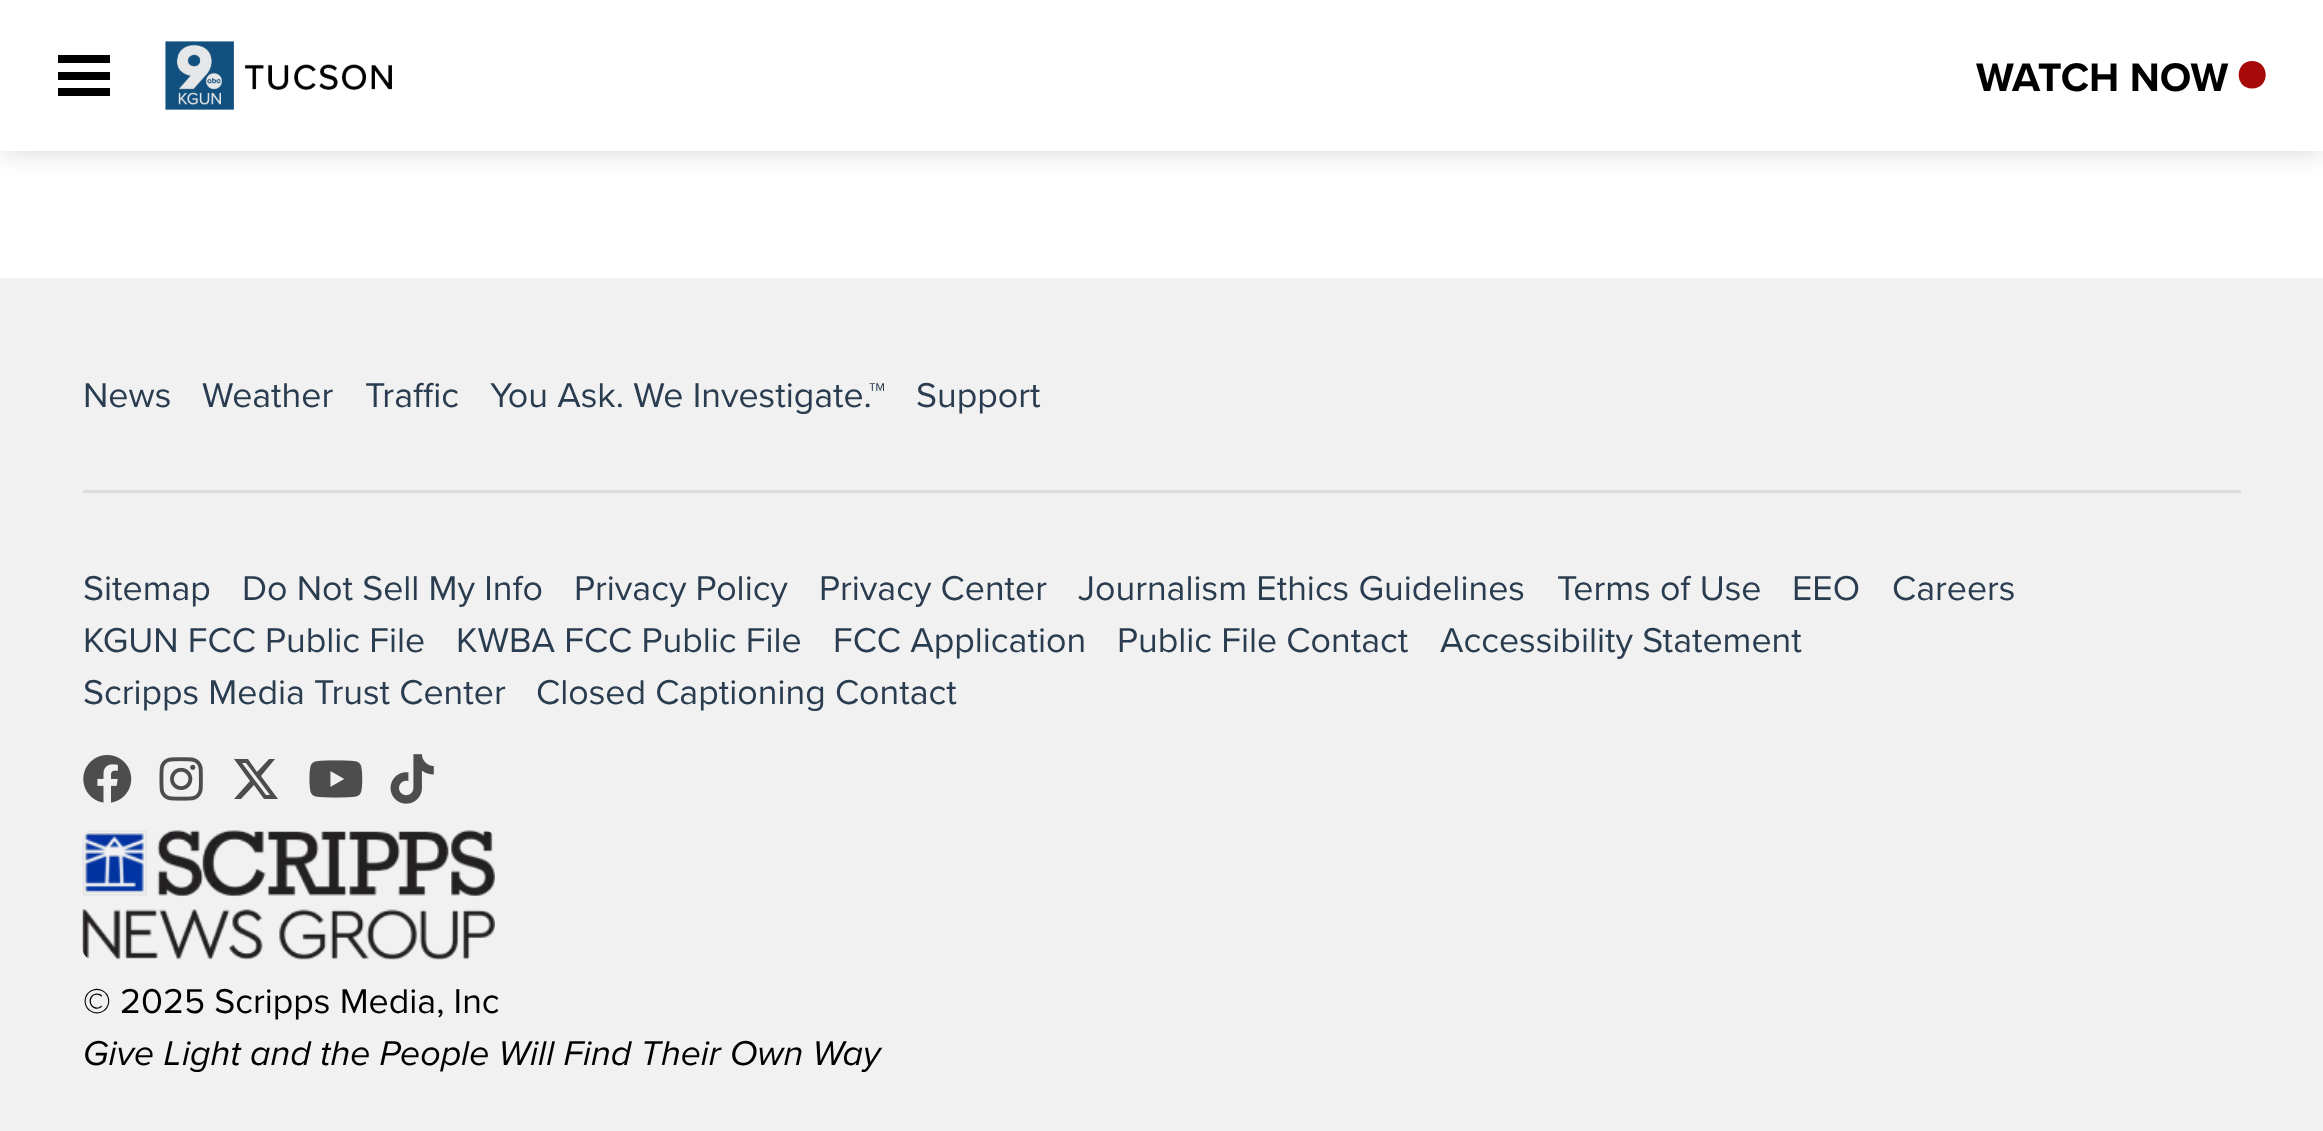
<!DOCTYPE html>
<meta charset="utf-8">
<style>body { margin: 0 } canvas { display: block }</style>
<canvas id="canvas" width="2323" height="1131"></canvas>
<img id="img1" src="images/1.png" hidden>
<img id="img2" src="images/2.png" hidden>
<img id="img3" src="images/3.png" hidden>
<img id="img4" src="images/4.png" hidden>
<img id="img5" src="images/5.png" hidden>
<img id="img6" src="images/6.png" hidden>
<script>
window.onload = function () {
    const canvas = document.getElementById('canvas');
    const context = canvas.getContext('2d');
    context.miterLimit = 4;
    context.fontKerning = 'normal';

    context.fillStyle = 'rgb(255, 255, 255)';
    context.fillRect(0, 0, 2323, 1131);
    context.save();
    context.beginPath();
    context.rect(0, 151, 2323, 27);
    context.clip();
    context.fillStyle = 'rgba(204, 204, 204, 0.8)';
    context.filter = 'blur(14px)';
    context.beginPath();
    context.rect(0, 0, 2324, 151);
    context.fill();
    context.filter = 'none';
    context.restore();
    context.fillStyle = 'rgb(0, 0, 0)';
    context.fillRect(58, 55, 52, 8);
    context.fillRect(58, 72, 52, 8);
    context.fillRect(58, 88, 52, 8);
    context.drawImage(document.getElementById('img1'), 165, 41, 227, 69);
    context.fillStyle = 'rgb(167, 8, 8)';
    context.beginPath();
    context.moveTo(2252, 88.5);
    context.bezierCurveTo(2270.5, 88.5, 2270, 61, 2252, 61);
    context.bezierCurveTo(2234.5, 61, 2234, 88.5, 2252, 88.5);
    context.closePath();
    context.fill();
    context.fillStyle = 'rgb(241, 241, 241)';
    context.fillRect(0, 278, 2323, 853);
    context.fillStyle = 'rgb(221, 221, 221)';
    context.fillRect(83, 490, 2158, 3);
    context.drawImage(document.getElementById('img2'), 83, 755, 49, 48);
    context.drawImage(document.getElementById('img3'), 159, 757, 44, 44);
    context.fillStyle = 'rgb(77, 77, 77)';
    context.beginPath();
    context.moveTo(269, 759);
    context.lineTo(275, 759);
    context.lineTo(261, 776);
    context.lineTo(278, 799);
    context.lineTo(264, 799);
    context.lineTo(254, 785);
    context.lineTo(241, 799);
    context.lineTo(234, 799);
    context.lineTo(250, 781);
    context.lineTo(234, 759);
    context.lineTo(248, 759);
    context.lineTo(257, 772);
    context.closePath();
    context.moveTo(266, 795);
    context.lineTo(270, 795);
    context.lineTo(246, 763);
    context.lineTo(242, 763);
    context.closePath();
    context.fill();
    context.drawImage(document.getElementById('img4'), 309, 760, 54, 38);
    context.drawImage(document.getElementById('img5'), 390, 754, 44, 50);
    context.drawImage(document.getElementById('img6'), 82, 830, 413, 130);
    context.font = 'bold 41.25px Proxima Nova';
    context.fillStyle = 'rgb(0, 0, 0)';
    context.fillText('WATCH NOW', 1976, 91);
    context.font = '35.75px Proxima Nova';
    context.fillStyle = 'rgb(42, 60, 79)';
    context.fillText('News', 83, 407);
    context.fillText('Weather', 202, 407);
    context.fillText('Traffic', 365, 407);
    context.fillText('You Ask. We Investigate.™', 490, 407);
    context.fillText('Support', 916, 407);
    context.fillText('Sitemap', 83, 600);
    context.fillText('Do Not Sell My Info', 242, 600);
    context.fillText('Privacy Policy', 574, 600);
    context.fillText('Privacy Center', 819, 600);
    context.fillText('Journalism Ethics Guidelines', 1078, 600);
    context.fillText('Terms of Use', 1557, 600);
    context.fillText('EEO', 1792, 600);
    context.fillText('Careers', 1892, 600);
    context.fillText('KGUN FCC Public File', 83, 652);
    context.fillText('KWBA FCC Public File', 456, 652);
    context.fillText('FCC Application', 833, 652);
    context.fillText('Public File Contact', 1117, 652);
    context.fillText('Accessibility Statement', 1440, 652);
    context.fillText('Scripps Media Trust Center', 83, 704);
    context.fillText('Closed Captioning Contact', 536, 704);
    context.fillStyle = 'rgb(0, 0, 0)';
    context.fillText('© 2025 Scripps Media, Inc', 83, 1013);
    context.font = 'italic 35.75px Proxima Nova';
    context.fillText('Give Light and the People Will Find Their Own Way', 83, 1065);
};
</script>
